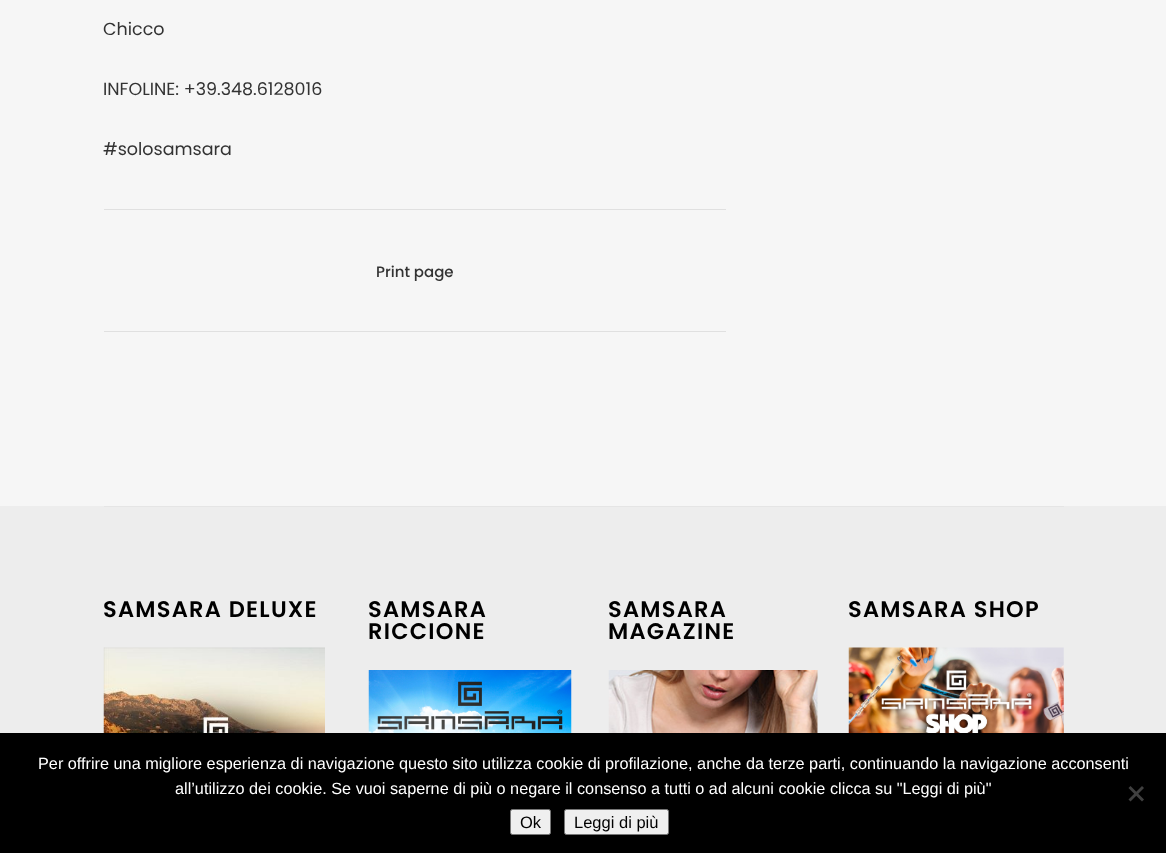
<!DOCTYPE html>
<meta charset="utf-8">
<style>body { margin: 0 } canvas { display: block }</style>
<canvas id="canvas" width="1166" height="853"></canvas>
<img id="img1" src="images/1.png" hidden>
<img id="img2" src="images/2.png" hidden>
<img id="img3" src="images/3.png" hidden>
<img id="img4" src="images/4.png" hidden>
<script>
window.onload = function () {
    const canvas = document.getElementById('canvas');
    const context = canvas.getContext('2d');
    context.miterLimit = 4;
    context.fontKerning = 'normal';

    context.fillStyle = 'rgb(246, 246, 246)';
    context.fillRect(0, 0, 1166, 853);
    context.fillStyle = 'rgb(224, 224, 224)';
    context.fillRect(104, 209, 622, 1);
    context.fillRect(104, 331, 622, 1);
    context.fillStyle = 'rgb(237, 237, 237)';
    context.fillRect(0, 506, 1166, 227);
    context.fillStyle = 'rgb(229, 229, 229)';
    context.fillRect(104, 506, 960, 1);
    context.drawImage(document.getElementById('img1'), 103, 647, 222, 86);
    context.drawImage(document.getElementById('img2'), 368, 670, 204, 63);
    context.drawImage(document.getElementById('img3'), 608, 670, 210, 63);
    context.drawImage(document.getElementById('img4'), 848, 647, 216, 86);
    context.fillStyle = 'rgb(0, 0, 0)';
    context.fillRect(0, 733, 1166, 120);
    context.fillStyle = 'rgb(64, 64, 64)';
    context.beginPath();
    context.moveTo(1142, 786);
    context.lineTo(1144, 788);
    context.lineTo(1130.5, 801.5);
    context.lineTo(1128.5, 799.5);
    context.closePath();
    context.fill();
    context.beginPath();
    context.moveTo(1128.5, 788);
    context.lineTo(1130.5, 786);
    context.lineTo(1144, 799.5);
    context.lineTo(1142, 801.5);
    context.closePath();
    context.fill();
    context.fillStyle = 'rgb(239, 239, 239)';
    context.beginPath();
    context.roundRect(510.5, 809.5, 40, 25, 2);
    context.fill();
    context.strokeStyle = 'rgb(118, 118, 118)';
    context.stroke();
    context.beginPath();
    context.roundRect(564.5, 809.5, 104, 25, 2);
    context.fill();
    context.stroke();
    context.font = '17.5px Poppins';
    context.fillStyle = 'rgb(51, 51, 51)';
    context.fillText('Chicco', 103, 35);
    context.fillText('INFOLINE: +39.348.6128016', 103, 95);
    context.fillText('#solosamsara', 103, 155);
    context.font = '500 15px Poppins';
    context.fillText('Print page', 376, 277);
    context.letterSpacing = '1.25px';
    context.font = '600 22.5px Poppins';
    context.fillStyle = 'rgb(0, 0, 0)';
    context.fillText('SAMSARA DELUXE', 103, 617);
    context.fillText('SAMSARA', 368, 617);
    context.fillText('RICCIONE', 368, 639);
    context.fillText('SAMSARA', 608, 617);
    context.fillText('MAGAZINE', 608, 639);
    context.fillText('SAMSARA SHOP', 848, 617);
    context.letterSpacing = '0px';
    context.font = '16.25px Liberation Sans';
    context.fillStyle = 'rgb(255, 255, 255)';
    context.fillText('Per offrire una migliore esperienza di navigazione questo sito utilizza cookie di profilazione, anche da terze parti, continuando la navigazione acconsenti', 38, 769);
    context.fillText('all’utilizzo dei cookie. Se vuoi saperne di più o negare il consenso a tutti o ad alcuni cookie clicca su "Leggi di più"', 175, 794);
    context.font = '16.5px Liberation Sans';
    context.fillStyle = 'rgb(0, 0, 0)';
    context.fillText('Ok', 520, 828);
    context.fillText('Leggi di più', 574, 828);
};
</script>
